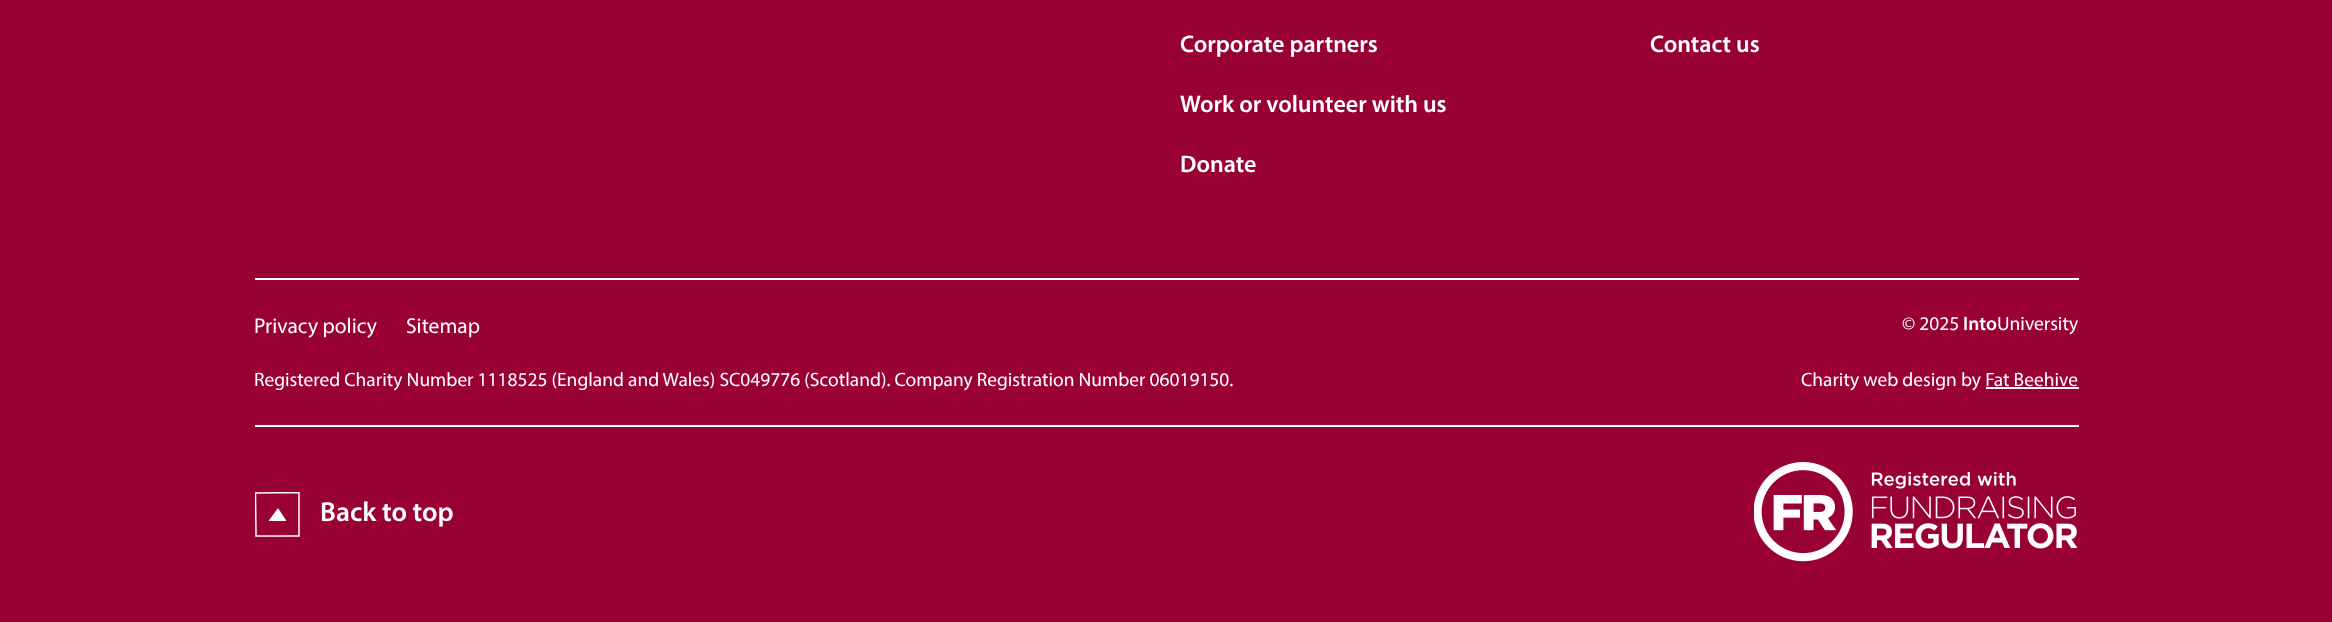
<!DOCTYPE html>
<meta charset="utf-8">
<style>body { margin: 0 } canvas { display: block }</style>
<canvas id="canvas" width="2332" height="622"></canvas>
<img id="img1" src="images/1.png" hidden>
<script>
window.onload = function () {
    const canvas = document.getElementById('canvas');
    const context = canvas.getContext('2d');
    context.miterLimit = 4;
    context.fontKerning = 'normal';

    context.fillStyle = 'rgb(153, 0, 51)';
    context.fillRect(0, 0, 2332, 622);
    context.fillStyle = 'rgb(255, 255, 255)';
    context.fillRect(255, 278, 1824, 2);
    context.fillRect(255, 425, 1824, 2);
    context.fillRect(1986, 387, 93, 2);
    context.save();
    context.beginPath();
    context.rect(255, 492, 45, 45);
    context.clip();
    context.beginPath();
    context.moveTo(256, 536);
    context.lineTo(255.5, 493);
    context.lineTo(299, 492.5);
    context.lineTo(299, 536);
    context.closePath();
    context.strokeStyle = 'rgb(255, 255, 255)';
    context.lineWidth = 1.5;
    context.stroke();
    context.restore();
    context.beginPath();
    context.moveTo(286.5, 521);
    context.lineTo(268.5, 521);
    context.lineTo(278, 508);
    context.closePath();
    context.fill();
    context.drawImage(document.getElementById('img1'), 1754, 462, 324, 100);
    context.font = '600 24px Myriad';
    context.fillText('Corporate partners', 1180, 52);
    context.fillText('Work or volunteer with us', 1180, 112);
    context.fillText('Donate', 1180, 172);
    context.fillText('Contact us', 1650, 52);
    context.font = '21.5px Myriad';
    context.fillText('Privacy policy', 254, 333);
    context.fillText('Sitemap', 406, 333);
    context.font = '19.45px Myriad';
    context.fillText('© 2025', 1902, 330);
    context.font = '600 19.45px Myriad';
    context.fillText('Into', 1963, 330);
    context.font = '19.45px Myriad';
    context.fillText('University', 1997, 330);
    context.fillText('Registered Charity Number 1118525 (England and Wales) SC049776 (Scotland). Company Registration Number 06019150.', 254, 386);
    context.fillText('Charity web design by Fat Beehive', 1801, 386);
    context.font = '600 27.5px Myriad';
    context.fillText('Back to top', 320, 521);
};
</script>
